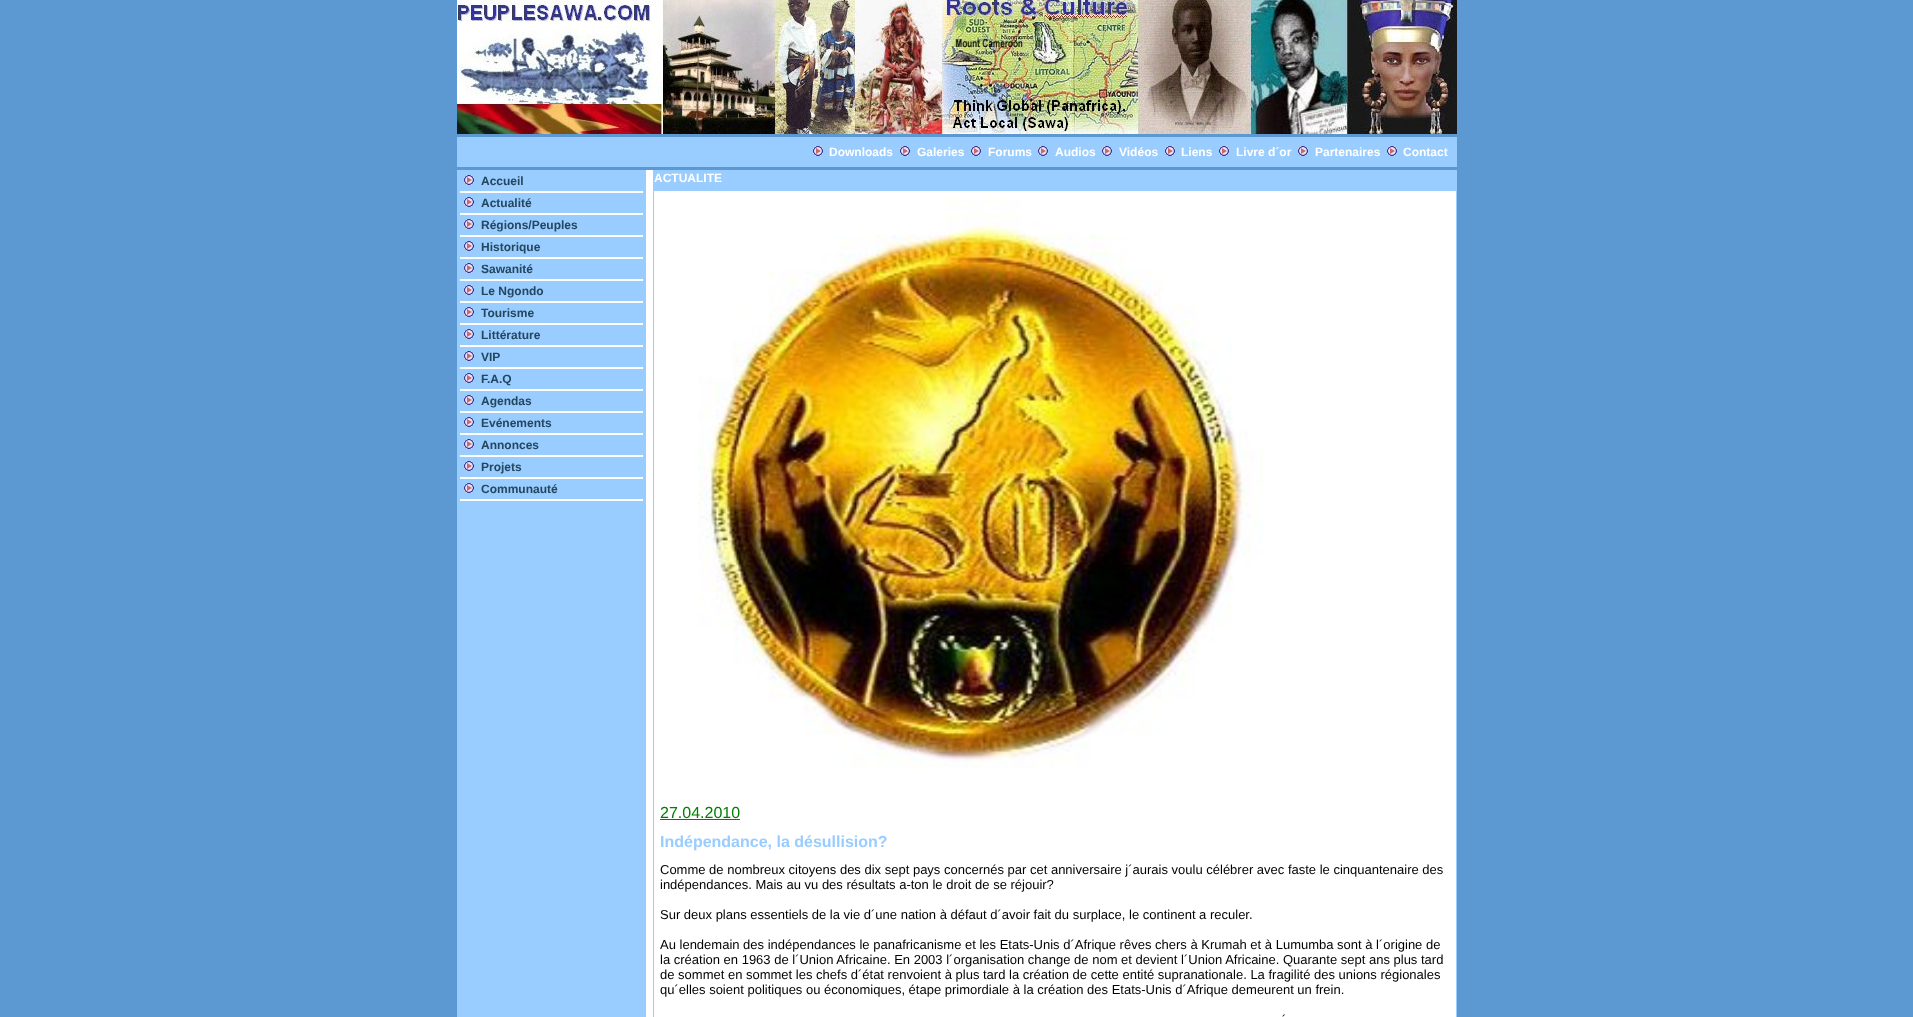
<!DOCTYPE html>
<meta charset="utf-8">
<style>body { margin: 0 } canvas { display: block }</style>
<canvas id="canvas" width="1913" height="1017"></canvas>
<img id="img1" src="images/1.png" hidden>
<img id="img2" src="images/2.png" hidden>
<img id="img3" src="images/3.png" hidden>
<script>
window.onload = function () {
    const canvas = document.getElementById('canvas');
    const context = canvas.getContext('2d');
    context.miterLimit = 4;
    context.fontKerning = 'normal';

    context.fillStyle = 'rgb(92, 153, 210)';
    context.fillRect(0, 0, 1913, 1017);
    context.drawImage(document.getElementById('img1'), 457, 0, 1000, 134);
    context.fillStyle = 'rgb(153, 204, 255)';
    context.fillRect(457, 137, 1000, 30);
    context.drawImage(document.getElementById('img2'), 813, 146, 10, 10);
    context.drawImage(document.getElementById('img2'), 900, 146, 10, 10);
    context.drawImage(document.getElementById('img2'), 971, 146, 10, 10);
    context.drawImage(document.getElementById('img2'), 1038, 146, 10, 10);
    context.drawImage(document.getElementById('img2'), 1102, 146, 10, 10);
    context.drawImage(document.getElementById('img2'), 1165, 146, 10, 10);
    context.drawImage(document.getElementById('img2'), 1219, 146, 10, 10);
    context.drawImage(document.getElementById('img2'), 1298, 146, 10, 10);
    context.drawImage(document.getElementById('img2'), 1387, 146, 10, 10);
    context.fillRect(457, 170, 189, 847);
    context.drawImage(document.getElementById('img2'), 464, 175, 10, 10);
    context.fillStyle = 'rgb(255, 255, 255)';
    context.fillRect(460, 191, 183, 2);
    context.drawImage(document.getElementById('img2'), 464, 197, 10, 10);
    context.fillRect(460, 213, 183, 2);
    context.drawImage(document.getElementById('img2'), 464, 219, 10, 10);
    context.fillRect(460, 235, 183, 2);
    context.drawImage(document.getElementById('img2'), 464, 241, 10, 10);
    context.fillRect(460, 257, 183, 2);
    context.drawImage(document.getElementById('img2'), 464, 263, 10, 10);
    context.fillRect(460, 279, 183, 2);
    context.drawImage(document.getElementById('img2'), 464, 285, 10, 10);
    context.fillRect(460, 301, 183, 2);
    context.drawImage(document.getElementById('img2'), 464, 307, 10, 10);
    context.fillRect(460, 323, 183, 2);
    context.drawImage(document.getElementById('img2'), 464, 329, 10, 10);
    context.fillRect(460, 345, 183, 2);
    context.drawImage(document.getElementById('img2'), 464, 351, 10, 10);
    context.fillRect(460, 367, 183, 2);
    context.drawImage(document.getElementById('img2'), 464, 373, 10, 10);
    context.fillRect(460, 389, 183, 2);
    context.drawImage(document.getElementById('img2'), 464, 395, 10, 10);
    context.fillRect(460, 411, 183, 2);
    context.drawImage(document.getElementById('img2'), 464, 417, 10, 10);
    context.fillRect(460, 433, 183, 2);
    context.drawImage(document.getElementById('img2'), 464, 439, 10, 10);
    context.fillRect(460, 455, 183, 2);
    context.drawImage(document.getElementById('img2'), 464, 461, 10, 10);
    context.fillRect(460, 477, 183, 2);
    context.drawImage(document.getElementById('img2'), 464, 483, 10, 10);
    context.fillRect(460, 499, 183, 2);
    context.fillRect(646, 170, 7, 847);
    context.fillStyle = 'rgb(153, 204, 255)';
    context.fillRect(653, 170, 804, 847);
    context.fillStyle = 'rgb(255, 255, 255)';
    context.fillRect(654, 191, 802, 826);
    context.drawImage(document.getElementById('img3'), 698, 200, 565, 569);
    context.fillStyle = 'rgb(0, 128, 0)';
    context.fillRect(660, 819, 80, 1);
    context.font = 'bold 12px Liberation Sans';
    context.fillStyle = 'rgb(255, 255, 255)';
    context.fillText('Downloads', 829, 156);
    context.fillText('Galeries', 917, 156);
    context.fillText('Forums', 988, 156);
    context.fillText('Audios', 1055, 156);
    context.fillText('Vidéos', 1119, 156);
    context.fillText('Liens', 1181, 156);
    context.fillText('Livre d´or', 1236, 156);
    context.fillText('Partenaires', 1315, 156);
    context.fillText('Contact', 1403, 156);
    context.fillStyle = 'rgb(36, 70, 94)';
    context.fillText('Accueil', 481, 185);
    context.fillText('Actualité', 481, 207);
    context.fillText('Régions/Peuples', 481, 229);
    context.fillText('Historique', 481, 251);
    context.fillText('Sawanité', 481, 273);
    context.fillText('Le Ngondo', 481, 295);
    context.fillText('Tourisme', 481, 317);
    context.fillText('Littérature', 481, 339);
    context.fillText('VIP', 481, 361);
    context.fillText('F.A.Q', 481, 383);
    context.fillText('Agendas', 481, 405);
    context.fillText('Evénements', 481, 427);
    context.fillText('Annonces', 481, 449);
    context.fillText('Projets', 481, 471);
    context.fillText('Communauté', 481, 493);
    context.fillStyle = 'rgb(255, 255, 255)';
    context.fillText('ACTUALITE', 654, 182);
    context.font = '16px Liberation Sans';
    context.fillStyle = 'rgb(0, 128, 0)';
    context.fillText('27.04.2010', 660, 818);
    context.font = 'bold 16px Liberation Sans';
    context.fillStyle = 'rgb(153, 204, 255)';
    context.fillText('Indépendance, la désullision?', 660, 847);
    context.font = '13px Liberation Sans';
    context.fillStyle = 'rgb(0, 0, 0)';
    context.fillText('Comme de nombreux citoyens des dix sept pays concernés par cet anniversaire j´aurais voulu célébrer avec faste le cinquantenaire des', 660, 874);
    context.fillText('indépendances. Mais au vu des résultats a-ton le droit de se réjouir?', 660, 889);
    context.fillText('Sur deux plans essentiels de la vie d´une nation à défaut d´avoir fait du surplace, le continent a reculer.', 660, 919);
    context.fillText('Au lendemain des indépendances le panafricanisme et les Etats-Unis d´Afrique rêves chers à Krumah et à Lumumba sont à l´origine de', 660, 949);
    context.fillText('la création en 1963 de l´Union Africaine. En 2003 l´organisation change de nom et devient l´Union Africaine. Quarante sept ans plus tard', 660, 964);
    context.fillText('de sommet en sommet les chefs d´état renvoient à plus tard la création de cette entité supranationale. La fragilité des unions régionales', 660, 979);
    context.fillText('qu´elles soient politiques ou économiques, étape primordiale à la création des Etats-Unis d´Afrique demeurent un frein.', 660, 994);
    context.fillText('´', 1282, 1024);
};
</script>
